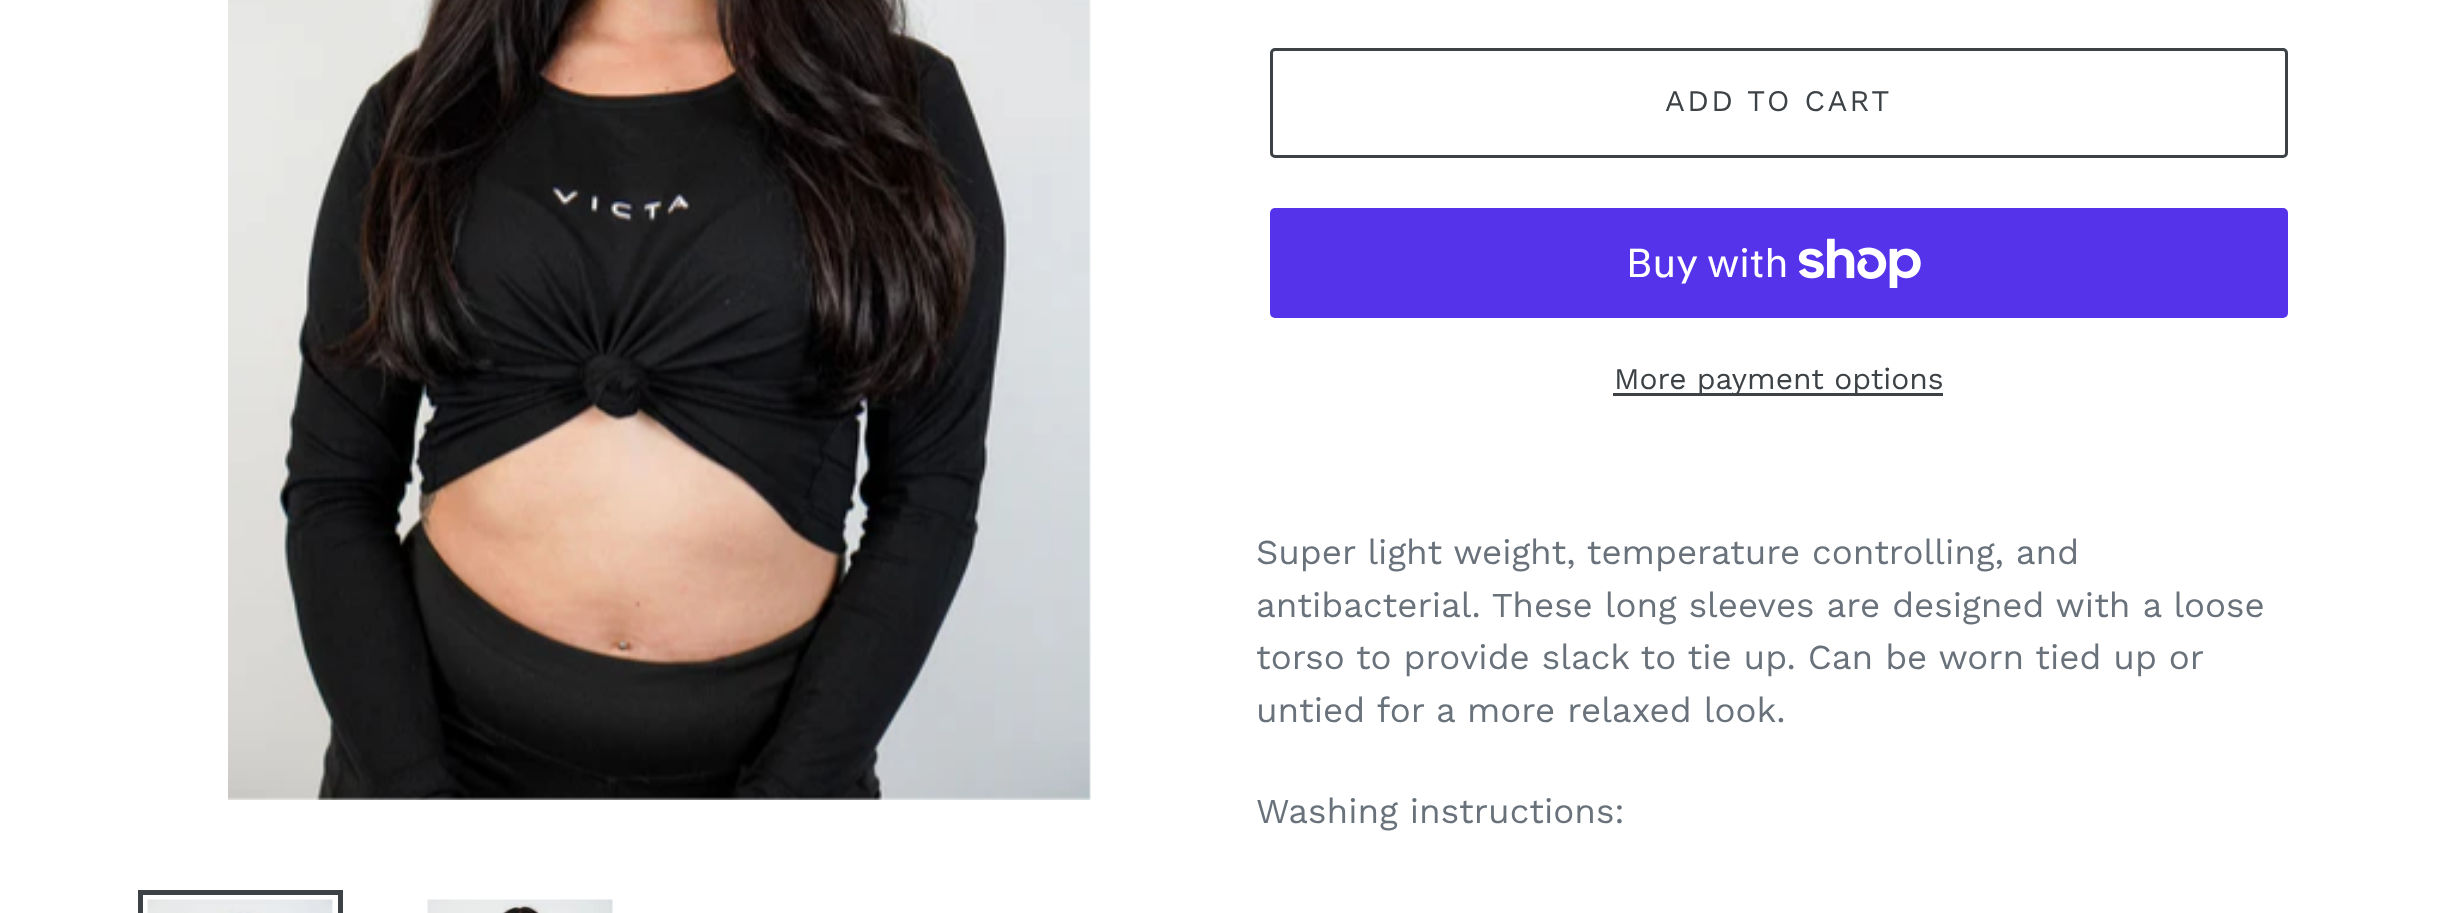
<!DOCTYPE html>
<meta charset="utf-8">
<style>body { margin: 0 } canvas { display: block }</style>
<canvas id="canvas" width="2437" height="913"></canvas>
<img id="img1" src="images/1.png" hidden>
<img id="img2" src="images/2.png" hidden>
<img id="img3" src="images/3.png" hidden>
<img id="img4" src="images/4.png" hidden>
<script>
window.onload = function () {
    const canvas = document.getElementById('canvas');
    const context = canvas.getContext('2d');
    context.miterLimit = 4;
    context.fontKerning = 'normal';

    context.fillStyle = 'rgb(255, 255, 255)';
    context.fillRect(0, 0, 2437, 913);
    context.drawImage(document.getElementById('img1'), 228, 0, 863, 800);
    context.strokeStyle = 'rgb(61, 66, 70)';
    context.lineWidth = 5;
    context.strokeRect(140.5, 892.5, 200, 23);
    context.drawImage(document.getElementById('img2'), 147, 899, 186, 14);
    context.drawImage(document.getElementById('img3'), 427, 899, 186, 14);
    context.beginPath();
    context.roundRect(1271.5, 49.5, 1015, 107, 3.5);
    context.lineWidth = 3;
    context.stroke();
    context.fillStyle = 'rgb(84, 51, 235)';
    context.beginPath();
    context.roundRect(1270, 208, 1018, 110, 5);
    context.fill();
    context.drawImage(document.getElementById('img4'), 1798, 238, 123, 50);
    context.fillStyle = 'rgb(61, 66, 70)';
    context.fillRect(1613, 393, 330, 3);
    context.letterSpacing = '2.4px';
    context.font = '30px Work Sans';
    context.fillText('ADD TO CART', 1665, 111);
    context.letterSpacing = '0px';
    context.font = '40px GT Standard';
    context.fillStyle = 'rgb(255, 255, 255)';
    context.fillText('Buy with', 1626, 277);
    context.font = '30px Work Sans';
    context.fillStyle = 'rgb(61, 66, 70)';
    context.fillText('More payment options', 1614, 389);
    context.font = '35px Work Sans';
    context.fillStyle = 'rgb(105, 114, 123)';
    context.fillText('Super light weight, temperature controlling, and', 1256, 564);
    context.fillText('antibacterial. These long sleeves are designed with a loose', 1256, 617);
    context.fillText('torso to provide slack to tie up. Can be worn tied up or', 1256, 669);
    context.fillText('untied for a more relaxed look.', 1256, 722);
    context.fillText('Washing instructions:', 1256, 823);
};
</script>
